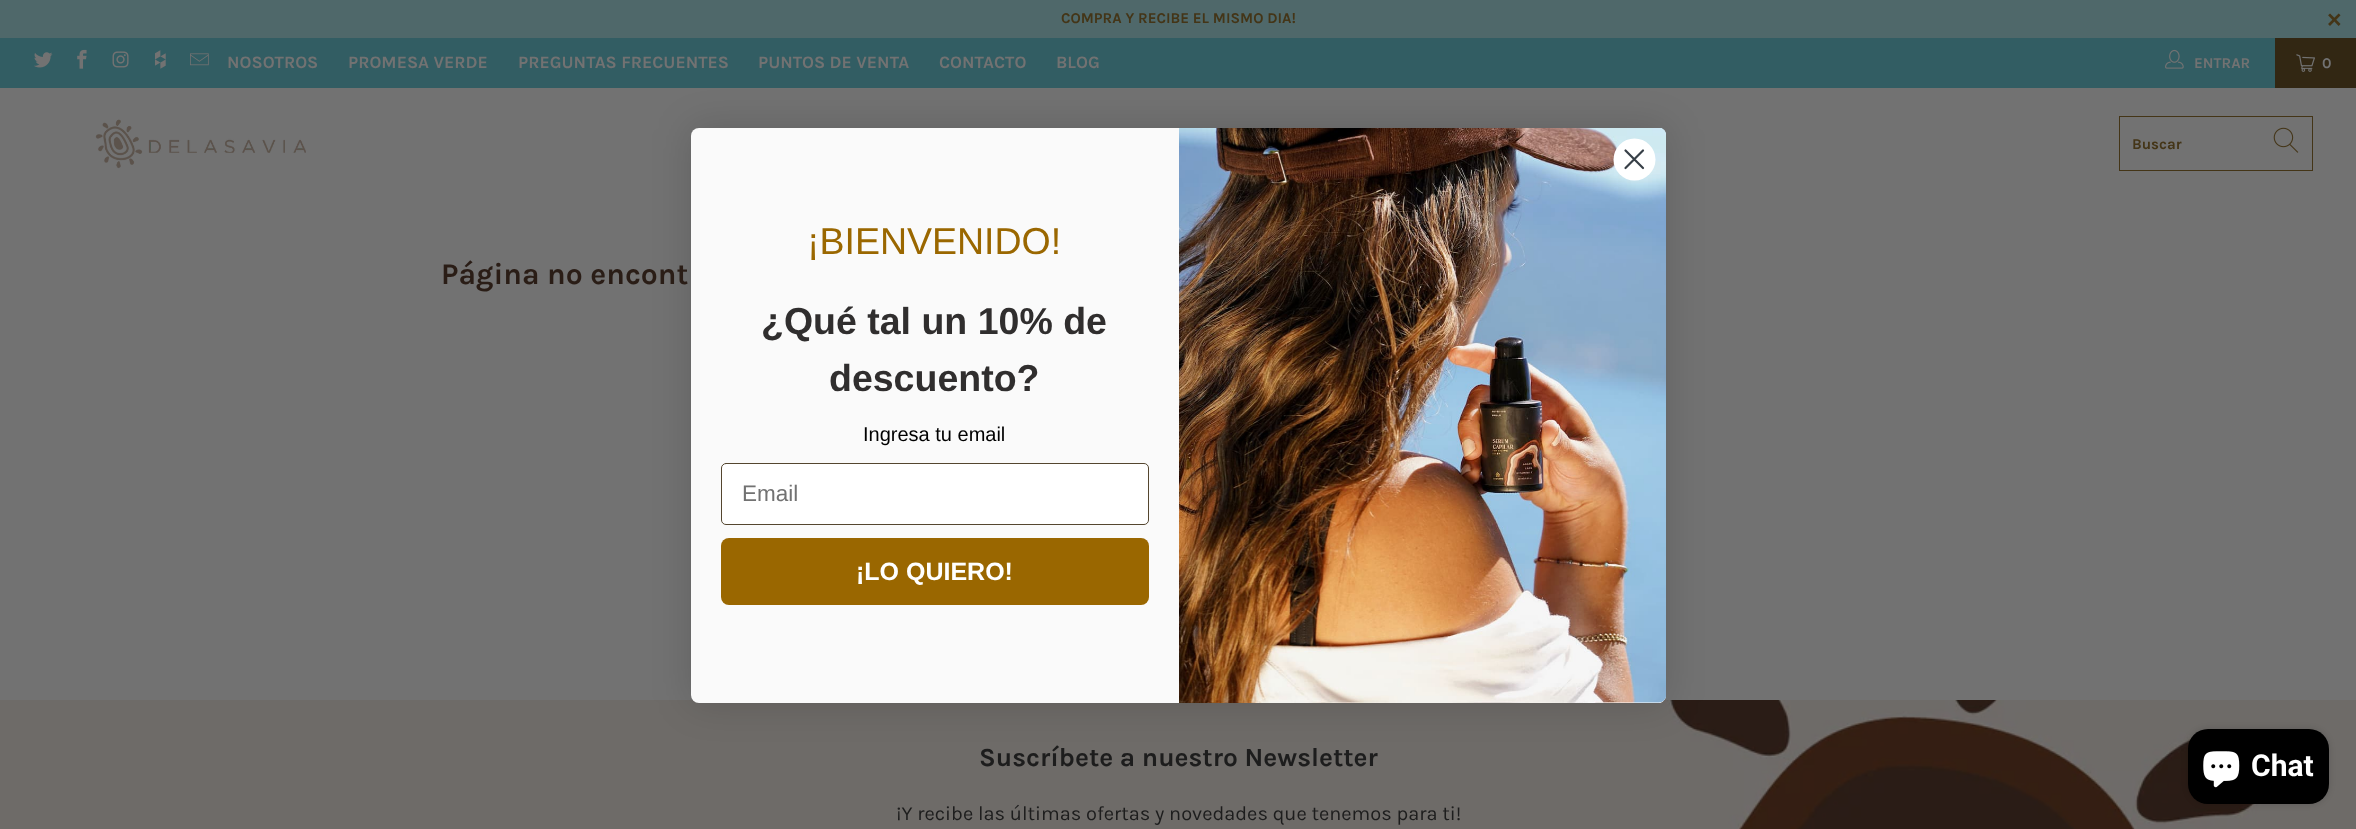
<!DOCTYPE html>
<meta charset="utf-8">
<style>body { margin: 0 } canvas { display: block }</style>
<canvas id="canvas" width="2356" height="829"></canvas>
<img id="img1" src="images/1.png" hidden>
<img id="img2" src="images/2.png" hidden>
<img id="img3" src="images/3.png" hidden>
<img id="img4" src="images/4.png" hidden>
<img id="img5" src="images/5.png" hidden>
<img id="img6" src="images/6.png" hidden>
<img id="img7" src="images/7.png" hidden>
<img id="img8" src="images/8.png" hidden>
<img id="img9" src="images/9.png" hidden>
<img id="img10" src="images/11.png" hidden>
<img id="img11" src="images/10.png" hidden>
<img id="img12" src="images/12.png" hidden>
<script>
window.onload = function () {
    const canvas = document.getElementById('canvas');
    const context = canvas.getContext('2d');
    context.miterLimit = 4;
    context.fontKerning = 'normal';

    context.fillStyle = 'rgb(114, 114, 114)';
    context.fillRect(0, 0, 2356, 829);
    context.fillStyle = 'rgb(79, 104, 106)';
    context.fillRect(0, 0, 2356, 38);
    context.fillStyle = 'rgb(50, 93, 99)';
    context.fillRect(0, 38, 2275, 50);
    context.drawImage(document.getElementById('img1'), 34, 52, 19, 16);
    context.drawImage(document.getElementById('img2'), 77, 49, 10, 20);
    context.drawImage(document.getElementById('img3'), 112, 51, 17, 17);
    context.drawImage(document.getElementById('img4'), 155, 50, 11, 19);
    context.drawImage(document.getElementById('img5'), 190, 53, 19, 13);
    context.drawImage(document.getElementById('img6'), 2165, 49, 19, 20);
    context.fillStyle = 'rgb(50, 39, 19)';
    context.fillRect(2275, 38, 81, 50);
    context.drawImage(document.getElementById('img7'), 2296, 54, 19, 18);
    context.drawImage(document.getElementById('img8'), 95, 119, 211, 50);
    context.strokeStyle = 'rgb(68, 53, 23)';
    context.strokeRect(2119.5, 116.5, 193, 54);
    context.drawImage(document.getElementById('img9'), 2273, 127, 26, 26);
    context.drawImage(document.getElementById('img10'), 0, 700, 2356, 129);
    context.fillStyle = 'rgba(0, 0, 0, 0.15)';
    context.filter = 'blur(19px)';
    context.beginPath();
    context.roundRect(691, 128, 975, 575, 8);
    context.fill();
    context.filter = 'none';
    context.fillStyle = 'rgb(250, 250, 250)';
    context.beginPath();
    context.roundRect(691, 128, 975, 575, 8);
    context.fill();
    context.fillStyle = 'rgb(255, 255, 255)';
    context.beginPath();
    context.roundRect(1179, 128, 487, 575, [0, 8, 8, 0]);
    context.fill();
    context.drawImage(document.getElementById('img11'), 1179, 128, 487, 575);
    context.beginPath();
    context.arc(1634.5, 159.5, 21, 0, 2 * Math.PI);
    context.fill();
    context.beginPath();
    context.moveTo(1625.5, 150.5);
    context.lineTo(1643, 168);
    context.moveTo(1625.5, 168);
    context.lineTo(1643, 150.5);
    context.closePath();
    context.strokeStyle = 'rgb(55, 63, 71)';
    context.lineWidth = 2.2;
    context.lineCap = 'round';
    context.lineJoin = 'round';
    context.stroke();
    context.beginPath();
    context.roundRect(721.5, 463.5, 427, 61, 4.5);
    context.fill();
    context.strokeStyle = 'rgb(84, 70, 47)';
    context.lineWidth = 1;
    context.lineJoin = 'miter';
    context.stroke();
    context.fillStyle = 'rgb(154, 103, 0)';
    context.beginPath();
    context.roundRect(721, 538, 428, 67, 8);
    context.fill();
    context.fillStyle = 'rgba(0, 0, 0, 0.15)';
    context.filter = 'blur(3px)';
    context.beginPath();
    context.roundRect(2188, 729, 141, 75, 20);
    context.fill();
    context.filter = 'none';
    context.fillStyle = 'rgb(0, 0, 0)';
    context.beginPath();
    context.roundRect(2188, 729, 141, 75, 20);
    context.fill();
    context.drawImage(document.getElementById('img12'), 2203, 751, 37, 37);
    context.font = 'bold 15px Karla';
    context.fillStyle = 'rgb(68, 53, 23)';
    context.fillText('COMPRA Y RECIBE EL MISMO DIA!', 1061, 23);
    context.font = 'bold 25px Liberation Sans';
    context.fillText('×', 2327, 28);
    context.font = 'bold 17.5px Karla';
    context.fillStyle = 'rgb(114, 114, 114)';
    context.fillText('NOSOTROS', 227, 68);
    context.fillText('PROMESA VERDE', 348, 68);
    context.fillText('PREGUNTAS FRECUENTES', 518, 68);
    context.fillText('PUNTOS DE VENTA', 758, 68);
    context.fillText('CONTACTO', 939, 68);
    context.fillText('BLOG', 1056, 68);
    context.font = 'bold 15px Karla';
    context.fillText('ENTRAR', 2194, 68);
    context.fillText('0', 2322, 68);
    context.fillStyle = 'rgb(68, 53, 23)';
    context.fillText('Buscar', 2132, 149);
    context.font = 'bold 30px Karla';
    context.fillStyle = 'rgb(42, 29, 22)';
    context.fillText('Página no encont', 441, 284);
    context.font = '37.5px Liberation Sans';
    context.fillStyle = 'rgb(154, 103, 0)';
    context.fillText('¡BIENVENIDO!', 807, 254);
    context.font = 'bold 37.5px Liberation Sans';
    context.fillStyle = 'rgb(48, 46, 46)';
    context.fillText('¿Qué tal un 10% de', 761, 334);
    context.fillText('descuento?', 829, 391);
    context.font = '20px Liberation Sans';
    context.fillStyle = 'rgb(0, 0, 0)';
    context.fillText('Ingresa tu email', 863, 441);
    context.font = '22.5px Liberation Sans';
    context.fillStyle = 'rgb(114, 114, 114)';
    context.fillText('Email', 742, 501);
    context.font = 'bold 25px Liberation Sans';
    context.fillStyle = 'rgb(255, 255, 255)';
    context.fillText('¡LO QUIERO!', 856, 580);
    context.font = 'bold 26.25px Karla';
    context.fillStyle = 'rgb(29, 29, 29)';
    context.fillText('Suscríbete a nuestro Newsletter', 979, 766);
    context.font = '20px Karla';
    context.fillText('¡Y recibe las últimas ofertas y novedades que tenemos para ti!', 896, 820);
    context.font = 'bold 30px Roboto';
    context.fillStyle = 'rgb(255, 255, 255)';
    context.fillText('Chat', 2251, 776);
};
</script>
